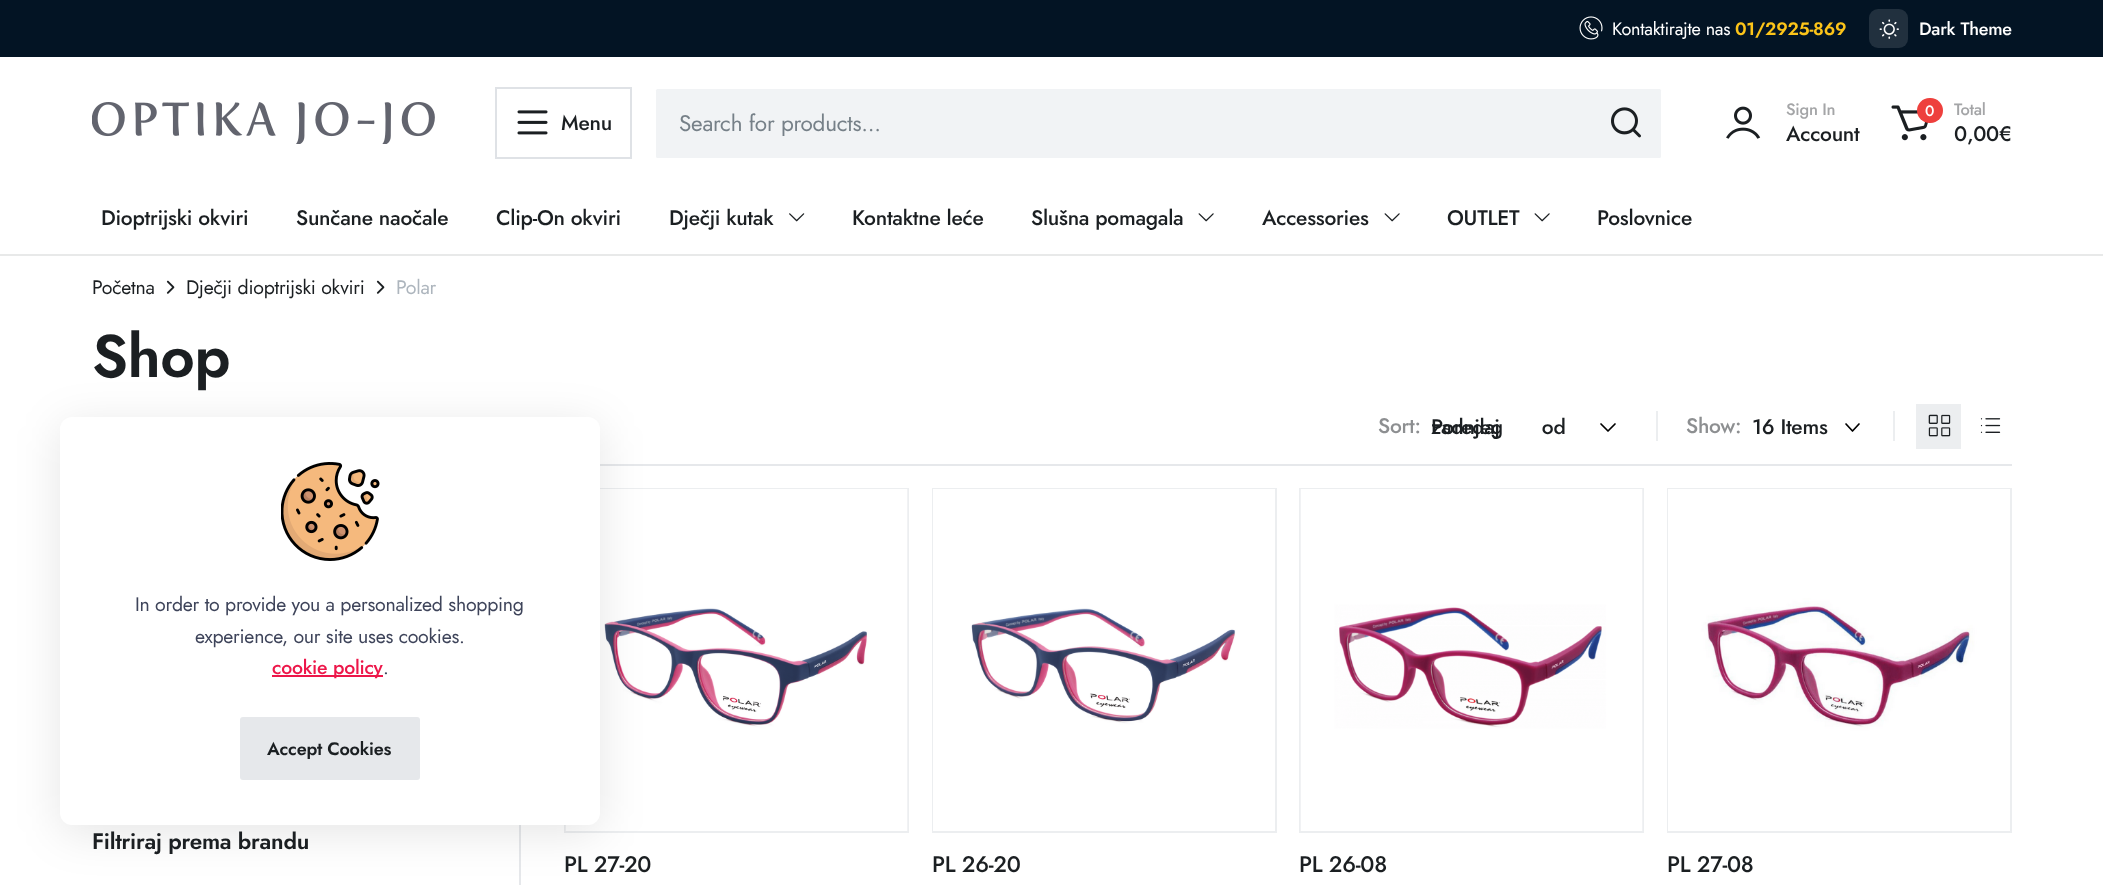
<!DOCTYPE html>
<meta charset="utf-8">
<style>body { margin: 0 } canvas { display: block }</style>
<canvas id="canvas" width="2103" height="885"></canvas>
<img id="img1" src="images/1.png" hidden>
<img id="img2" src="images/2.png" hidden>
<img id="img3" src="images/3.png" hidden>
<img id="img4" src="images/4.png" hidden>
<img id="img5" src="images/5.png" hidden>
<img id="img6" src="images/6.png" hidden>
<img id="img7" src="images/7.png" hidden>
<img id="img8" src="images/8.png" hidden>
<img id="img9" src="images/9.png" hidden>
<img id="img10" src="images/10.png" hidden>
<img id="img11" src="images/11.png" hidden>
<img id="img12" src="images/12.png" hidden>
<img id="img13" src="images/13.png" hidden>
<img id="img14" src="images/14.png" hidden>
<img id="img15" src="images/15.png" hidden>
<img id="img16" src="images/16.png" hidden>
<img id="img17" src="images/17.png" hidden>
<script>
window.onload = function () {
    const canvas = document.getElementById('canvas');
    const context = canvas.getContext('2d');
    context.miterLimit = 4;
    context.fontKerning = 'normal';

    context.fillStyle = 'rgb(255, 255, 255)';
    context.fillRect(0, 0, 2103, 885);
    context.fillStyle = 'rgb(3, 20, 36)';
    context.fillRect(0, 0, 2103, 57);
    context.drawImage(document.getElementById('img1'), 1579, 16, 24, 24);
    context.fillStyle = 'rgb(33, 48, 62)';
    context.beginPath();
    context.roundRect(1869, 9, 39, 39, 9);
    context.fill();
    context.drawImage(document.getElementById('img2'), 1879, 19, 20, 20);
    context.drawImage(document.getElementById('img3'), 92, 102, 343, 42);
    context.strokeStyle = 'rgb(223, 226, 230)';
    context.lineWidth = 2;
    context.strokeRect(496, 88, 135, 70);
    context.drawImage(document.getElementById('img4'), 517, 110, 31, 25);
    context.fillStyle = 'rgb(241, 243, 245)';
    context.beginPath();
    context.roundRect(656, 89, 1005, 69, 1.5);
    context.fill();
    context.drawImage(document.getElementById('img5'), 1611, 107, 30, 31);
    context.drawImage(document.getElementById('img6'), 1726, 106, 35, 33);
    context.drawImage(document.getElementById('img7'), 1891, 105, 37, 36);
    context.fillStyle = 'rgb(238, 64, 61)';
    context.beginPath();
    context.roundRect(1917, 98, 26, 25, 12.5);
    context.fill();
    context.fillStyle = 'rgb(232, 233, 233)';
    context.fillRect(0, 254, 2103, 2);
    context.drawImage(document.getElementById('img8'), 789, 213, 16, 9);
    context.drawImage(document.getElementById('img9'), 1198, 213, 16, 9);
    context.drawImage(document.getElementById('img9'), 1384, 213, 16, 9);
    context.drawImage(document.getElementById('img9'), 1534, 213, 16, 9);
    context.drawImage(document.getElementById('img10'), 166, 280, 9, 14);
    context.drawImage(document.getElementById('img10'), 376, 280, 9, 14);
    context.fillStyle = 'rgb(230, 232, 235)';
    context.fillRect(600, 464, 1412, 2);
    context.beginPath();
    context.moveTo(1601, 424);
    context.lineTo(1608, 431);
    context.lineTo(1615, 424);
    context.strokeStyle = 'rgb(0, 0, 0)';
    context.lineWidth = 1.7;
    context.lineCap = 'round';
    context.lineJoin = 'round';
    context.stroke();
    context.fillStyle = 'rgb(236, 238, 240)';
    context.fillRect(1656, 411, 2, 30);
    context.beginPath();
    context.moveTo(1846, 424);
    context.lineTo(1852.5, 431);
    context.lineTo(1859, 424);
    context.stroke();
    context.fillRect(1893, 411, 2, 30);
    context.fillRect(1916, 404, 45, 45);
    context.drawImage(document.getElementById('img11'), 1928, 414, 23, 23);
    context.drawImage(document.getElementById('img12'), 1980, 418, 21, 15);
    context.fillStyle = 'rgb(230, 232, 235)';
    context.fillRect(519, 825, 2, 60);
    context.strokeStyle = 'rgb(236, 238, 240)';
    context.lineWidth = 2;
    context.lineJoin = 'miter';
    context.strokeRect(565, 489, 343, 343);
    context.drawImage(document.getElementById('img13'), 565, 489, 343, 342);
    context.strokeRect(933, 489, 343, 343);
    context.drawImage(document.getElementById('img14'), 933, 489, 342, 342);
    context.strokeRect(1300, 489, 343, 343);
    context.drawImage(document.getElementById('img15'), 1300, 489, 343, 342);
    context.strokeRect(1668, 489, 343, 343);
    context.drawImage(document.getElementById('img16'), 1668, 489, 342, 342);
    context.fillStyle = 'rgba(0, 0, 0, 0.1)';
    context.filter = 'blur(22.5px)';
    context.beginPath();
    context.roundRect(60, 425, 540, 408, 12);
    context.fill();
    context.filter = 'none';
    context.fillStyle = 'rgb(255, 255, 255)';
    context.beginPath();
    context.roundRect(60, 417, 540, 408, 12);
    context.fill();
    context.drawImage(document.getElementById('img17'), 281, 462, 99, 99);
    context.fillStyle = 'rgb(237, 23, 74)';
    context.fillRect(272, 675, 111, 2);
    context.fillStyle = 'rgb(230, 232, 235)';
    context.beginPath();
    context.roundRect(240, 717, 180, 63, 3);
    context.fill();
    context.letterSpacing = '-0.25px';
    context.font = '18px Jost';
    context.fillStyle = 'rgb(255, 255, 255)';
    context.fillText('Kontaktirajte nas', 1612, 35);
    context.font = '600 18px Jost';
    context.fillStyle = 'rgb(252, 196, 25)';
    context.fillText('01/2925-869', 1735, 35);
    context.font = '500 18px Jost';
    context.fillStyle = 'rgb(255, 255, 255)';
    context.fillText('Dark Theme', 1919, 35);
    context.font = '500 21px Jost';
    context.fillStyle = 'rgb(27, 31, 34)';
    context.fillText('Menu', 561, 130);
    context.font = '22.5px Jost';
    context.fillStyle = 'rgb(118, 128, 136)';
    context.fillText('Search for products...', 679, 131);
    context.font = '500 16.5px Jost';
    context.fillStyle = 'rgb(164, 165, 167)';
    context.fillText('Sign In', 1786, 115);
    context.font = '500 21px Jost';
    context.fillStyle = 'rgb(27, 31, 34)';
    context.fillText('Account', 1786, 141);
    context.font = '500 15px Jost';
    context.fillStyle = 'rgb(255, 255, 255)';
    context.fillText('0', 1925, 116);
    context.font = '500 16.5px Jost';
    context.fillStyle = 'rgb(164, 165, 167)';
    context.fillText('Total', 1954, 115);
    context.font = '500 21px Jost';
    context.fillStyle = 'rgb(27, 31, 34)';
    context.fillText('0,00€', 1954, 141);
    context.fillText('Dioptrijski okviri', 101, 225);
    context.fillText('Sunčane naočale', 296, 225);
    context.fillText('Clip-On okviri', 496, 225);
    context.fillText('Dječji kutak', 669, 225);
    context.fillText('Kontaktne leće', 852, 225);
    context.fillText('Slušna pomagala', 1031, 225);
    context.fillText('Accessories', 1262, 225);
    context.fillText('OUTLET', 1447, 225);
    context.fillText('Poslovnice', 1597, 225);
    context.font = '19.5px Jost';
    context.fillText('Početna', 92, 294);
    context.fillText('Dječji dioptrijski okviri', 186, 294);
    context.fillStyle = 'rgb(173, 181, 189)';
    context.fillText('Polar', 396, 294);
    context.letterSpacing = '-0.5px';
    context.font = '600 60px Jost';
    context.fillStyle = 'rgb(27, 31, 34)';
    context.fillText('Shop', 92, 377);
    context.letterSpacing = '-0.25px';
    context.font = '500 21px Jost';
    context.fillStyle = 'rgb(141, 143, 145)';
    context.fillText('Sort:', 1378, 433);
    context.wordSpacing = '36px';
    context.fillStyle = 'rgb(27, 31, 34)';
    context.fillText('Poredaj od', 1431, 434);
    context.wordSpacing = '0px';
    context.fillText('zadnjeg', 1431, 434);
    context.fillStyle = 'rgb(141, 143, 145)';
    context.fillText('Show:', 1686, 433);
    context.fillStyle = 'rgb(27, 31, 34)';
    context.fillText('16 Items', 1752, 434);
    context.font = '600 22.5px Jost';
    context.fillText('Filtriraj prema brandu', 92, 849);
    context.font = '500 22.5px Jost';
    context.fillText('PL 27-20', 564, 872);
    context.fillText('PL 26-20', 932, 872);
    context.fillText('PL 26-08', 1299, 872);
    context.fillText('PL 27-08', 1667, 872);
    context.font = '19.5px Jost';
    context.fillStyle = 'rgb(62, 68, 90)';
    context.fillText('In order to provide you a personalized shopping', 135, 611);
    context.fillText('experience, our site uses cookies.', 195, 643);
    context.font = '500 19.5px Jost';
    context.fillStyle = 'rgb(237, 23, 74)';
    context.fillText('cookie policy', 272, 674);
    context.font = '19.5px Jost';
    context.fillStyle = 'rgb(62, 68, 90)';
    context.fillText('.', 383, 674);
    context.font = '600 18px Jost';
    context.fillStyle = 'rgb(27, 31, 34)';
    context.fillText('Accept Cookies', 267, 755);
};
</script>
